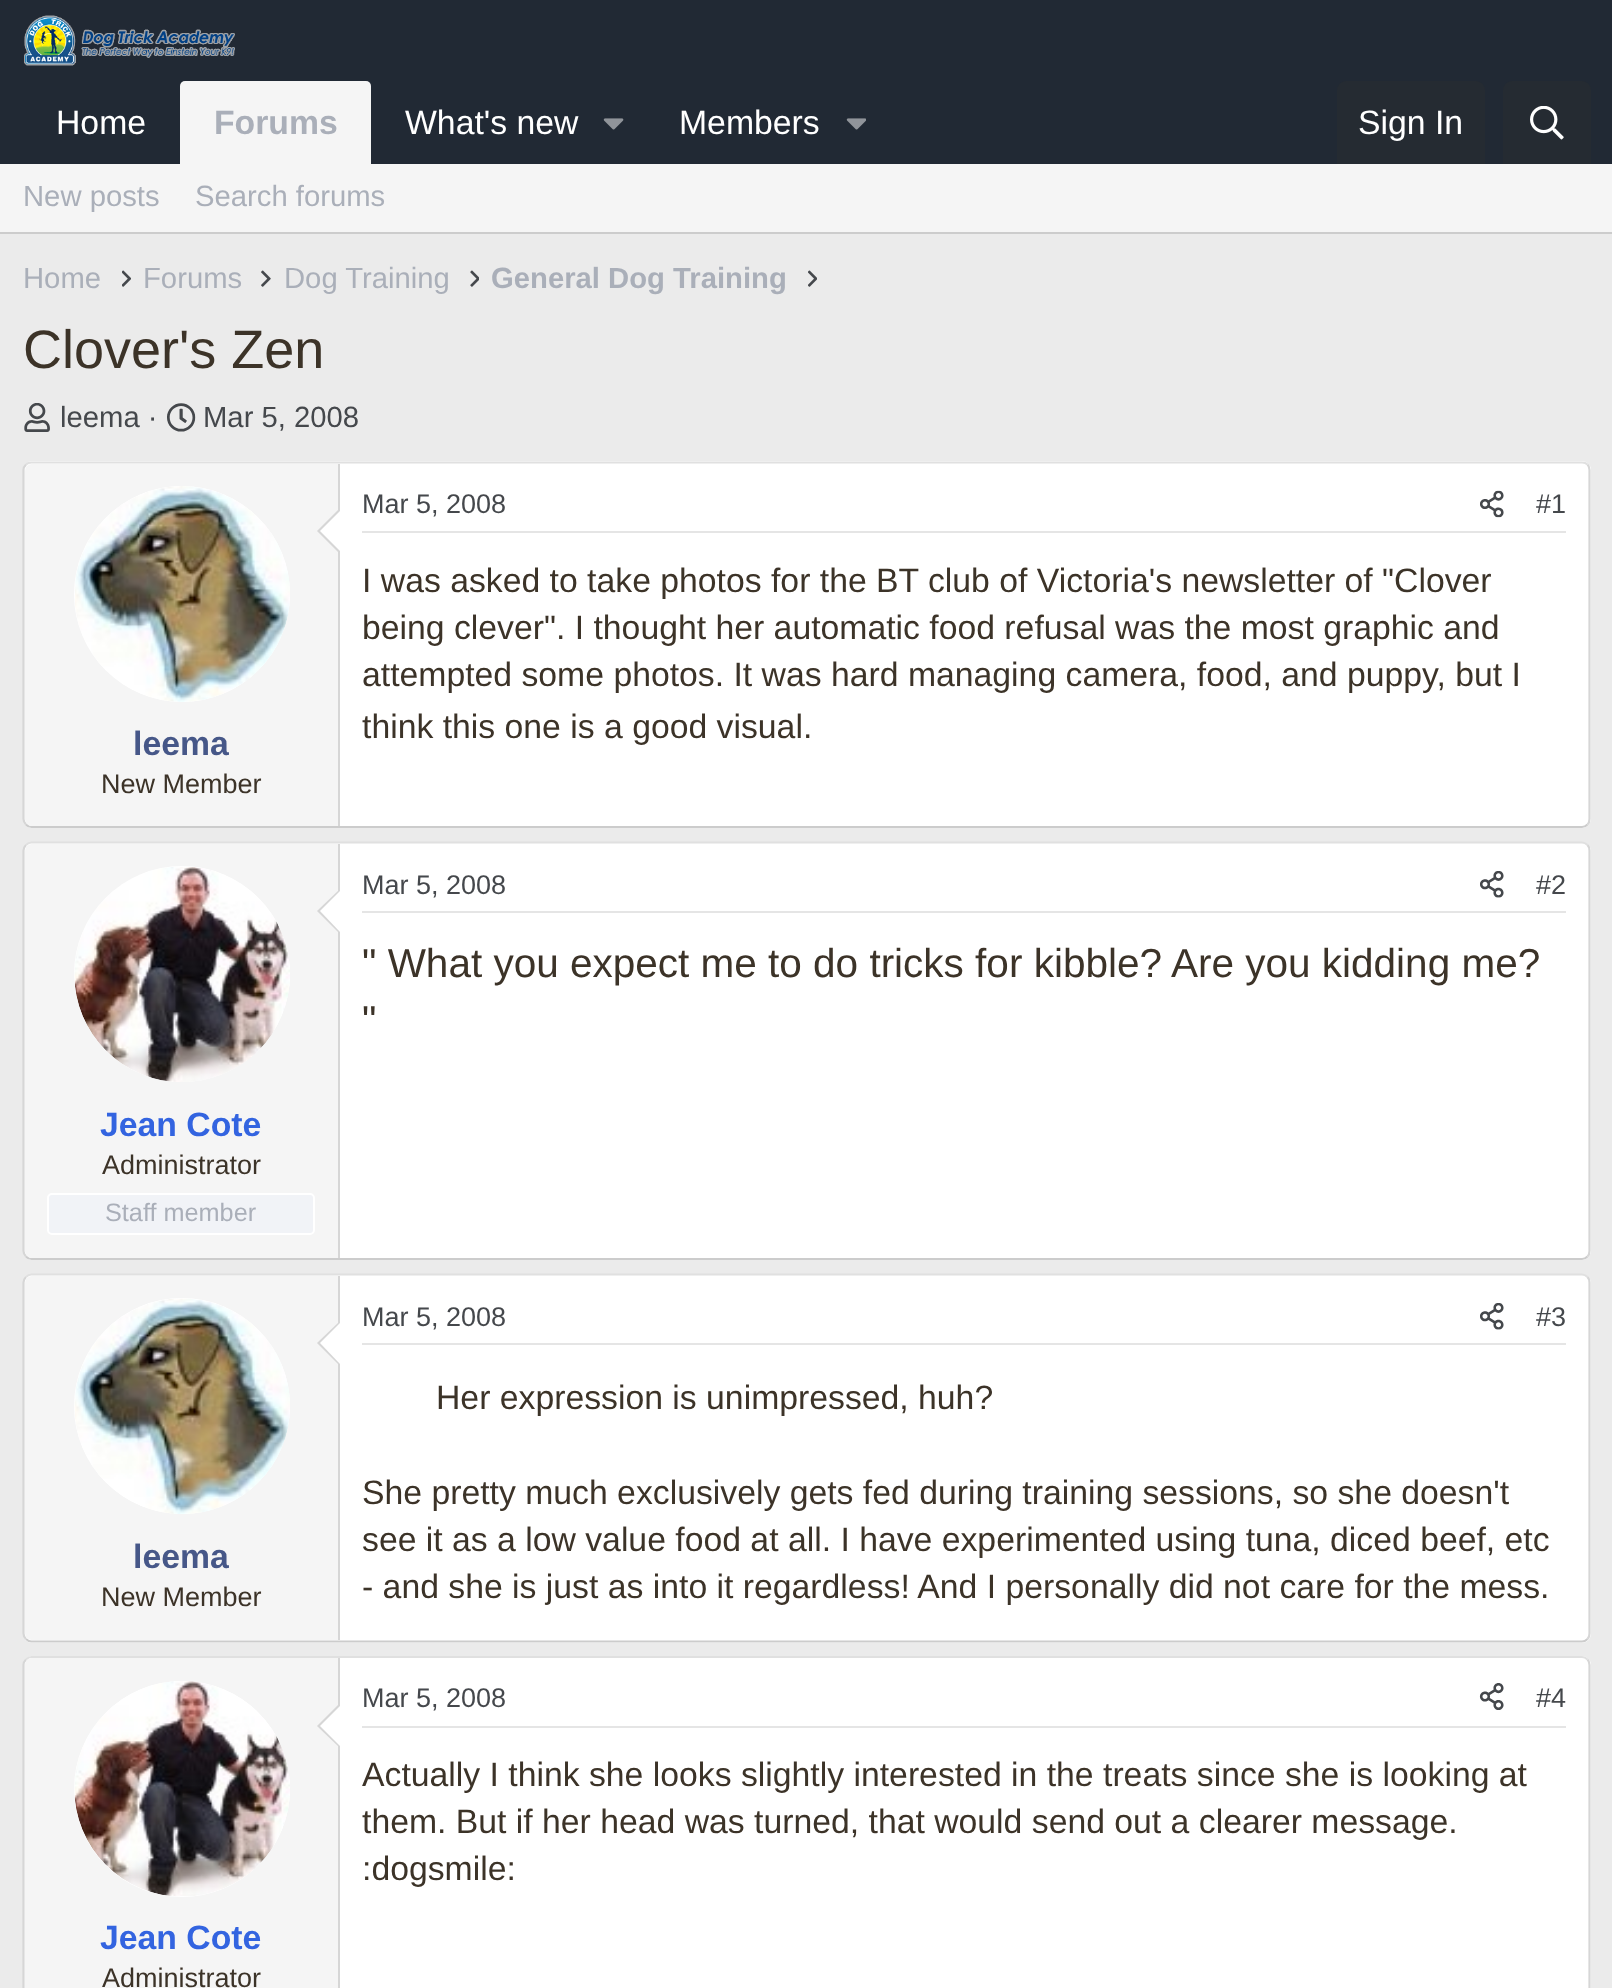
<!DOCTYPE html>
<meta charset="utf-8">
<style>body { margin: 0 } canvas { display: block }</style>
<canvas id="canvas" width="1612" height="1988"></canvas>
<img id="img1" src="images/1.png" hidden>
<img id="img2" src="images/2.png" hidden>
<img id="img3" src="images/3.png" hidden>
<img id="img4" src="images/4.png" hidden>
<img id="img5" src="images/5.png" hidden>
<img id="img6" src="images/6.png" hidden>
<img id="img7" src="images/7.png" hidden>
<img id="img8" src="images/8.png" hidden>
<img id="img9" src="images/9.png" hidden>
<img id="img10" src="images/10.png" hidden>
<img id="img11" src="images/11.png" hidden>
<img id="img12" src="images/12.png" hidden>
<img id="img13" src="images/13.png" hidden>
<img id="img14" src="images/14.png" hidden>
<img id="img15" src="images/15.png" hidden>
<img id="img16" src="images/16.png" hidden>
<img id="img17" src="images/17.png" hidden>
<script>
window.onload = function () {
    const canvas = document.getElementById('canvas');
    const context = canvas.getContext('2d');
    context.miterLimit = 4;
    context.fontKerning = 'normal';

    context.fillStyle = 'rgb(235, 235, 235)';
    context.fillRect(0, 0, 1612, 1988);
    context.fillStyle = 'rgb(33, 41, 52)';
    context.fillRect(0, 0, 1612, 164);
    context.drawImage(document.getElementById('img1'), 24, 15, 211, 51);
    context.fillStyle = 'rgb(245, 245, 245)';
    context.beginPath();
    context.roundRect(180, 81, 191, 83, [5, 5, 0, 0]);
    context.fill();
    context.drawImage(document.getElementById('img2'), 603, 118, 21, 12);
    context.drawImage(document.getElementById('img3'), 846, 118, 20, 12);
    context.fillStyle = 'rgb(37, 43, 50)';
    context.beginPath();
    context.roundRect(1337, 81, 148, 83, [9, 9, 0, 0]);
    context.fill();
    context.beginPath();
    context.roundRect(1503, 81, 88, 83, [9, 9, 0, 0]);
    context.fill();
    context.drawImage(document.getElementById('img4'), 1530, 106, 34, 34);
    context.fillStyle = 'rgb(245, 245, 245)';
    context.fillRect(0, 164, 1612, 68);
    context.fillStyle = 'rgb(204, 204, 204)';
    context.fillRect(0, 232, 1612, 2);
    context.drawImage(document.getElementById('img5'), 122, 270, 9, 17);
    context.drawImage(document.getElementById('img6'), 261, 270, 10, 17);
    context.drawImage(document.getElementById('img7'), 470, 270, 9, 17);
    context.drawImage(document.getElementById('img8'), 808, 270, 9, 17);
    context.drawImage(document.getElementById('img9'), 24, 403, 26, 29);
    context.drawImage(document.getElementById('img10'), 167, 403, 29, 29);
    context.fillStyle = 'rgb(255, 255, 255)';
    context.beginPath();
    context.roundRect(23, 461, 1568, 367, 9);
    context.fill();
    context.beginPath();
    context.moveTo(26, 464.5);
    context.bezierCurveTo(27.5, 463, 29.5, 462.5, 31.5, 462.5);
    context.lineTo(1582, 462.5);
    context.bezierCurveTo(1584, 462.5, 1586, 463, 1587.5, 464.5);
    context.strokeStyle = 'rgb(224, 224, 224)';
    context.lineWidth = 2.2;
    context.stroke();
    context.beginPath();
    context.moveTo(1587.5, 464.5);
    context.bezierCurveTo(1589, 466, 1589.5, 468, 1589.5, 470);
    context.lineTo(1589.5, 819);
    context.bezierCurveTo(1589.5, 821, 1589, 823, 1587.5, 824.5);
    context.strokeStyle = 'rgb(214, 214, 214)';
    context.stroke();
    context.beginPath();
    context.moveTo(1587.5, 824.5);
    context.bezierCurveTo(1586, 826, 1584, 827, 1582, 827);
    context.lineTo(31.5, 827);
    context.bezierCurveTo(29.5, 827, 27.5, 826, 26, 824.5);
    context.strokeStyle = 'rgb(204, 204, 204)';
    context.stroke();
    context.beginPath();
    context.moveTo(26, 824.5);
    context.bezierCurveTo(24.5, 823, 23.5, 821, 23.5, 819);
    context.lineTo(23.5, 470);
    context.bezierCurveTo(23.5, 468, 24.5, 466, 26, 464.5);
    context.strokeStyle = 'rgb(214, 214, 214)';
    context.stroke();
    context.fillStyle = 'rgb(229, 229, 229)';
    context.fillRect(362, 531, 1204, 2);
    context.drawImage(document.getElementById('img11'), 1480, 490, 24, 28);
    context.fillStyle = 'rgb(245, 245, 245)';
    context.beginPath();
    context.roundRect(25, 464, 315, 362, [7, 0, 0, 7]);
    context.fill();
    context.fillStyle = 'rgb(214, 214, 214)';
    context.fillRect(338, 464, 2, 362);
    context.fillStyle = 'rgb(255, 255, 255)';
    context.beginPath();
    context.arc(182, 594, 108, 0, 2 * Math.PI);
    context.fill();
    context.drawImage(document.getElementById('img12'), 75, 486, 215, 216);
    context.fillStyle = 'rgb(214, 214, 214)';
    context.beginPath();
    context.moveTo(340, 508);
    context.lineTo(340, 554);
    context.lineTo(317, 531);
    context.closePath();
    context.fill();
    context.fillStyle = 'rgb(255, 255, 255)';
    context.beginPath();
    context.moveTo(340, 511);
    context.lineTo(340, 551);
    context.lineTo(320, 531);
    context.closePath();
    context.fill();
    context.beginPath();
    context.roundRect(23, 842, 1568, 418, 9);
    context.fill();
    context.beginPath();
    context.moveTo(26, 845);
    context.bezierCurveTo(27.5, 843.5, 29.5, 842.5, 31.5, 842.5);
    context.lineTo(1582, 842.5);
    context.bezierCurveTo(1584, 842.5, 1586, 843.5, 1587.5, 845);
    context.strokeStyle = 'rgb(224, 224, 224)';
    context.stroke();
    context.beginPath();
    context.moveTo(1587.5, 845);
    context.bezierCurveTo(1589, 846.5, 1589.5, 848.5, 1589.5, 850.5);
    context.lineTo(1589.5, 1251);
    context.bezierCurveTo(1589.5, 1253, 1589, 1255, 1587.5, 1256.5);
    context.strokeStyle = 'rgb(214, 214, 214)';
    context.stroke();
    context.beginPath();
    context.moveTo(1587.5, 1256.5);
    context.bezierCurveTo(1586, 1258, 1584, 1259, 1582, 1259);
    context.lineTo(31.5, 1259);
    context.bezierCurveTo(29.5, 1259, 27.5, 1258, 26, 1256.5);
    context.strokeStyle = 'rgb(204, 204, 204)';
    context.stroke();
    context.beginPath();
    context.moveTo(26, 1256.5);
    context.bezierCurveTo(24.5, 1255, 23.5, 1253, 23.5, 1251);
    context.lineTo(23.5, 850.5);
    context.bezierCurveTo(23.5, 848.5, 24.5, 846.5, 26, 845);
    context.strokeStyle = 'rgb(214, 214, 214)';
    context.stroke();
    context.fillStyle = 'rgb(229, 229, 229)';
    context.fillRect(362, 911, 1204, 2);
    context.drawImage(document.getElementById('img13'), 1480, 871, 24, 27);
    context.fillStyle = 'rgb(245, 245, 245)';
    context.beginPath();
    context.roundRect(25, 844, 315, 414, [7, 0, 0, 7]);
    context.fill();
    context.fillStyle = 'rgb(214, 214, 214)';
    context.fillRect(338, 844, 2, 414);
    context.fillStyle = 'rgb(255, 255, 255)';
    context.beginPath();
    context.arc(182, 974, 108, 0, 2 * Math.PI);
    context.fill();
    context.drawImage(document.getElementById('img14'), 74, 867, 216, 215);
    context.fillStyle = 'rgb(214, 214, 214)';
    context.beginPath();
    context.moveTo(340, 889);
    context.lineTo(340, 934);
    context.lineTo(317, 911);
    context.closePath();
    context.fill();
    context.fillStyle = 'rgb(255, 255, 255)';
    context.beginPath();
    context.moveTo(340, 891);
    context.lineTo(340, 932);
    context.lineTo(320, 911);
    context.closePath();
    context.fill();
    context.fillStyle = 'rgb(241, 243, 247)';
    context.beginPath();
    context.roundRect(48, 1194, 266, 40, 4);
    context.fill();
    context.strokeStyle = 'rgb(255, 255, 255)';
    context.lineWidth = 2;
    context.stroke();
    context.fillStyle = 'rgb(255, 255, 255)';
    context.beginPath();
    context.roundRect(23, 1274, 1568, 369, 9);
    context.fill();
    context.beginPath();
    context.moveTo(26, 1277);
    context.bezierCurveTo(27.5, 1275.5, 29.5, 1274.5, 31.5, 1274.5);
    context.lineTo(1582, 1274.5);
    context.bezierCurveTo(1584, 1274.5, 1586, 1275.5, 1587.5, 1277);
    context.strokeStyle = 'rgb(224, 224, 224)';
    context.lineWidth = 2.2;
    context.stroke();
    context.beginPath();
    context.moveTo(1587.5, 1277);
    context.bezierCurveTo(1589, 1278.5, 1589.5, 1280.5, 1589.5, 1282.5);
    context.lineTo(1589.5, 1633.5);
    context.bezierCurveTo(1589.5, 1635.5, 1589, 1637.5, 1587.5, 1639);
    context.strokeStyle = 'rgb(214, 214, 214)';
    context.stroke();
    context.beginPath();
    context.moveTo(1587.5, 1639);
    context.bezierCurveTo(1586, 1640.5, 1584, 1641.5, 1582, 1641.5);
    context.lineTo(31.5, 1641.5);
    context.bezierCurveTo(29.5, 1641.5, 27.5, 1640.5, 26, 1639);
    context.strokeStyle = 'rgb(204, 204, 204)';
    context.stroke();
    context.beginPath();
    context.moveTo(26, 1639);
    context.bezierCurveTo(24.5, 1637.5, 23.5, 1635.5, 23.5, 1633.5);
    context.lineTo(23.5, 1282.5);
    context.bezierCurveTo(23.5, 1280.5, 24.5, 1278.5, 26, 1277);
    context.strokeStyle = 'rgb(214, 214, 214)';
    context.stroke();
    context.fillStyle = 'rgb(245, 245, 245)';
    context.beginPath();
    context.roundRect(25, 1276, 315, 364, [7, 0, 0, 7]);
    context.fill();
    context.fillStyle = 'rgb(214, 214, 214)';
    context.fillRect(338, 1276, 2, 364);
    context.fillStyle = 'rgb(255, 255, 255)';
    context.beginPath();
    context.arc(182, 1406, 108, 0, 2 * Math.PI);
    context.fill();
    context.drawImage(document.getElementById('img15'), 74, 1298, 216, 216);
    context.fillStyle = 'rgb(214, 214, 214)';
    context.beginPath();
    context.moveTo(340, 1321);
    context.lineTo(340, 1366);
    context.lineTo(317, 1343);
    context.closePath();
    context.fill();
    context.fillStyle = 'rgb(255, 255, 255)';
    context.beginPath();
    context.moveTo(340, 1323);
    context.lineTo(340, 1364);
    context.lineTo(320, 1343);
    context.closePath();
    context.fill();
    context.fillStyle = 'rgb(229, 229, 229)';
    context.fillRect(362, 1343, 1204, 2);
    context.drawImage(document.getElementById('img13'), 1480, 1303, 24, 27);
    context.fillStyle = 'rgb(255, 255, 255)';
    context.beginPath();
    context.roundRect(23, 1656, 1568, 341, 9);
    context.fill();
    context.beginPath();
    context.moveTo(26, 1659.5);
    context.bezierCurveTo(27.5, 1658, 29.5, 1657, 31.5, 1657);
    context.lineTo(1582, 1657);
    context.bezierCurveTo(1584, 1657, 1586, 1658, 1587.5, 1659.5);
    context.strokeStyle = 'rgb(224, 224, 224)';
    context.stroke();
    context.beginPath();
    context.moveTo(1587.5, 1659.5);
    context.bezierCurveTo(1589, 1661, 1589.5, 1663, 1589.5, 1665);
    context.lineTo(1589.5, 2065.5);
    context.bezierCurveTo(1589.5, 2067.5, 1589, 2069.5, 1587.5, 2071);
    context.strokeStyle = 'rgb(214, 214, 214)';
    context.stroke();
    context.beginPath();
    context.moveTo(26, 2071);
    context.bezierCurveTo(24.5, 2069.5, 23.5, 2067.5, 23.5, 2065.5);
    context.lineTo(23.5, 1665);
    context.bezierCurveTo(23.5, 1663, 24.5, 1661, 26, 1659.5);
    context.stroke();
    context.fillStyle = 'rgb(229, 229, 229)';
    context.fillRect(362, 1726, 1204, 2);
    context.drawImage(document.getElementById('img16'), 1479, 1683, 25, 27);
    context.fillStyle = 'rgb(245, 245, 245)';
    context.beginPath();
    context.moveTo(32, 1658);
    context.lineTo(340, 1658);
    context.lineTo(340, 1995);
    context.lineTo(32, 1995);
    context.bezierCurveTo(28, 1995, 25, 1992, 25, 1988);
    context.lineTo(25, 1665);
    context.bezierCurveTo(25, 1661, 28, 1658, 32, 1658);
    context.closePath();
    context.fill();
    context.fillStyle = 'rgb(214, 214, 214)';
    context.fillRect(338, 1658, 2, 330);
    context.fillStyle = 'rgb(255, 255, 255)';
    context.beginPath();
    context.arc(182, 1789, 108, 0, 2 * Math.PI);
    context.fill();
    context.drawImage(document.getElementById('img17'), 74, 1681, 216, 215);
    context.fillStyle = 'rgb(214, 214, 214)';
    context.beginPath();
    context.moveTo(340, 1703);
    context.lineTo(340, 1748);
    context.lineTo(317, 1726);
    context.closePath();
    context.fill();
    context.fillStyle = 'rgb(255, 255, 255)';
    context.beginPath();
    context.moveTo(340, 1706);
    context.lineTo(340, 1746);
    context.lineTo(320, 1726);
    context.closePath();
    context.fill();
    context.font = '33.75px Liberation Sans';
    context.fillText('Home', 56, 134);
    context.font = 'bold 33.75px Liberation Sans';
    context.fillStyle = 'rgb(170, 175, 185)';
    context.fillText('Forums', 214, 134);
    context.font = '33.75px Liberation Sans';
    context.fillStyle = 'rgb(255, 255, 255)';
    context.fillText('What\'s new', 405, 134);
    context.fillText('Members', 679, 134);
    context.fillText('Sign In', 1358, 134);
    context.font = '29.25px Liberation Sans';
    context.fillStyle = 'rgb(170, 175, 185)';
    context.fillText('New posts', 23, 206);
    context.fillText('Search forums', 195, 206);
    context.fillText('Home', 23, 288);
    context.fillText('Forums', 143, 288);
    context.fillText('Dog Training', 284, 288);
    context.font = 'bold 29.25px Liberation Sans';
    context.fillText('General Dog Training', 491, 288);
    context.font = '54px Liberation Sans';
    context.fillStyle = 'rgb(60, 51, 40)';
    context.fillText('Clover\'s Zen', 23, 368);
    context.font = '29.25px Liberation Sans';
    context.fillStyle = 'rgb(69, 72, 76)';
    context.fillText('leema ·', 60, 427);
    context.fillText('Mar 5, 2008', 203, 427);
    context.font = '27px Liberation Sans';
    context.fillText('Mar 5, 2008', 362, 513);
    context.fillText('#1', 1536, 513);
    context.font = '33.75px Liberation Sans';
    context.fillStyle = 'rgb(60, 51, 40)';
    context.fillText('I was asked to take photos for the BT club of Victoria\'s newsletter of "Clover', 362, 592);
    context.fillText('being clever". I thought her automatic food refusal was the most graphic and', 362, 639);
    context.fillText('attempted some photos. It was hard managing camera, food, and puppy, but I', 362, 686);
    context.fillText('think this one is a good visual.', 362, 738);
    context.font = 'bold 33.75px Liberation Sans';
    context.fillStyle = 'rgb(70, 87, 136)';
    context.fillText('leema', 133, 755);
    context.font = '27px Liberation Sans';
    context.fillStyle = 'rgb(60, 51, 40)';
    context.fillText('New Member', 101, 793);
    context.fillStyle = 'rgb(69, 72, 76)';
    context.fillText('Mar 5, 2008', 362, 894);
    context.fillText('#2', 1536, 894);
    context.font = '40.5px Liberation Sans';
    context.fillStyle = 'rgb(60, 51, 40)';
    context.fillText('" What you expect me to do tricks for kibble? Are you kidding me?', 362, 977);
    context.fillText('"', 362, 1034);
    context.font = 'bold 33.75px Liberation Sans';
    context.fillStyle = 'rgb(51, 100, 224)';
    context.fillText('Jean Cote', 100, 1136);
    context.font = '27px Liberation Sans';
    context.fillStyle = 'rgb(60, 51, 40)';
    context.fillText('Administrator', 102, 1174);
    context.font = '25.25px Liberation Sans';
    context.fillStyle = 'rgb(170, 175, 185)';
    context.fillText('Staff member', 105, 1221);
    context.font = 'bold 33.75px Liberation Sans';
    context.fillStyle = 'rgb(70, 87, 136)';
    context.fillText('leema', 133, 1568);
    context.font = '27px Liberation Sans';
    context.fillStyle = 'rgb(60, 51, 40)';
    context.fillText('New Member', 101, 1606);
    context.fillStyle = 'rgb(69, 72, 76)';
    context.fillText('Mar 5, 2008', 362, 1326);
    context.fillText('#3', 1536, 1326);
    context.font = '33.75px Liberation Sans';
    context.fillStyle = 'rgb(60, 51, 40)';
    context.fillText('Her expression is unimpressed, huh?', 436, 1409);
    context.fillText('She pretty much exclusively gets fed during training sessions, so she doesn\'t', 362, 1504);
    context.fillText('see it as a low value food at all. I have experimented using tuna, diced beef, etc', 362, 1551);
    context.fillText('- and she is just as into it regardless! And I personally did not care for the mess.', 362, 1598);
    context.font = '27px Liberation Sans';
    context.fillStyle = 'rgb(69, 72, 76)';
    context.fillText('Mar 5, 2008', 362, 1707);
    context.fillText('#4', 1536, 1707);
    context.font = '33.75px Liberation Sans';
    context.fillStyle = 'rgb(60, 51, 40)';
    context.fillText('Actually I think she looks slightly interested in the treats since she is looking at', 362, 1786);
    context.fillText('them. But if her head was turned, that would send out a clearer message.', 362, 1833);
    context.fillText(':dogsmile:', 362, 1880);
    context.font = 'bold 33.75px Liberation Sans';
    context.fillStyle = 'rgb(51, 100, 224)';
    context.fillText('Jean Cote', 100, 1949);
    context.font = '27px Liberation Sans';
    context.fillStyle = 'rgb(60, 51, 40)';
    context.fillText('Administrator', 102, 1987);
};
</script>
